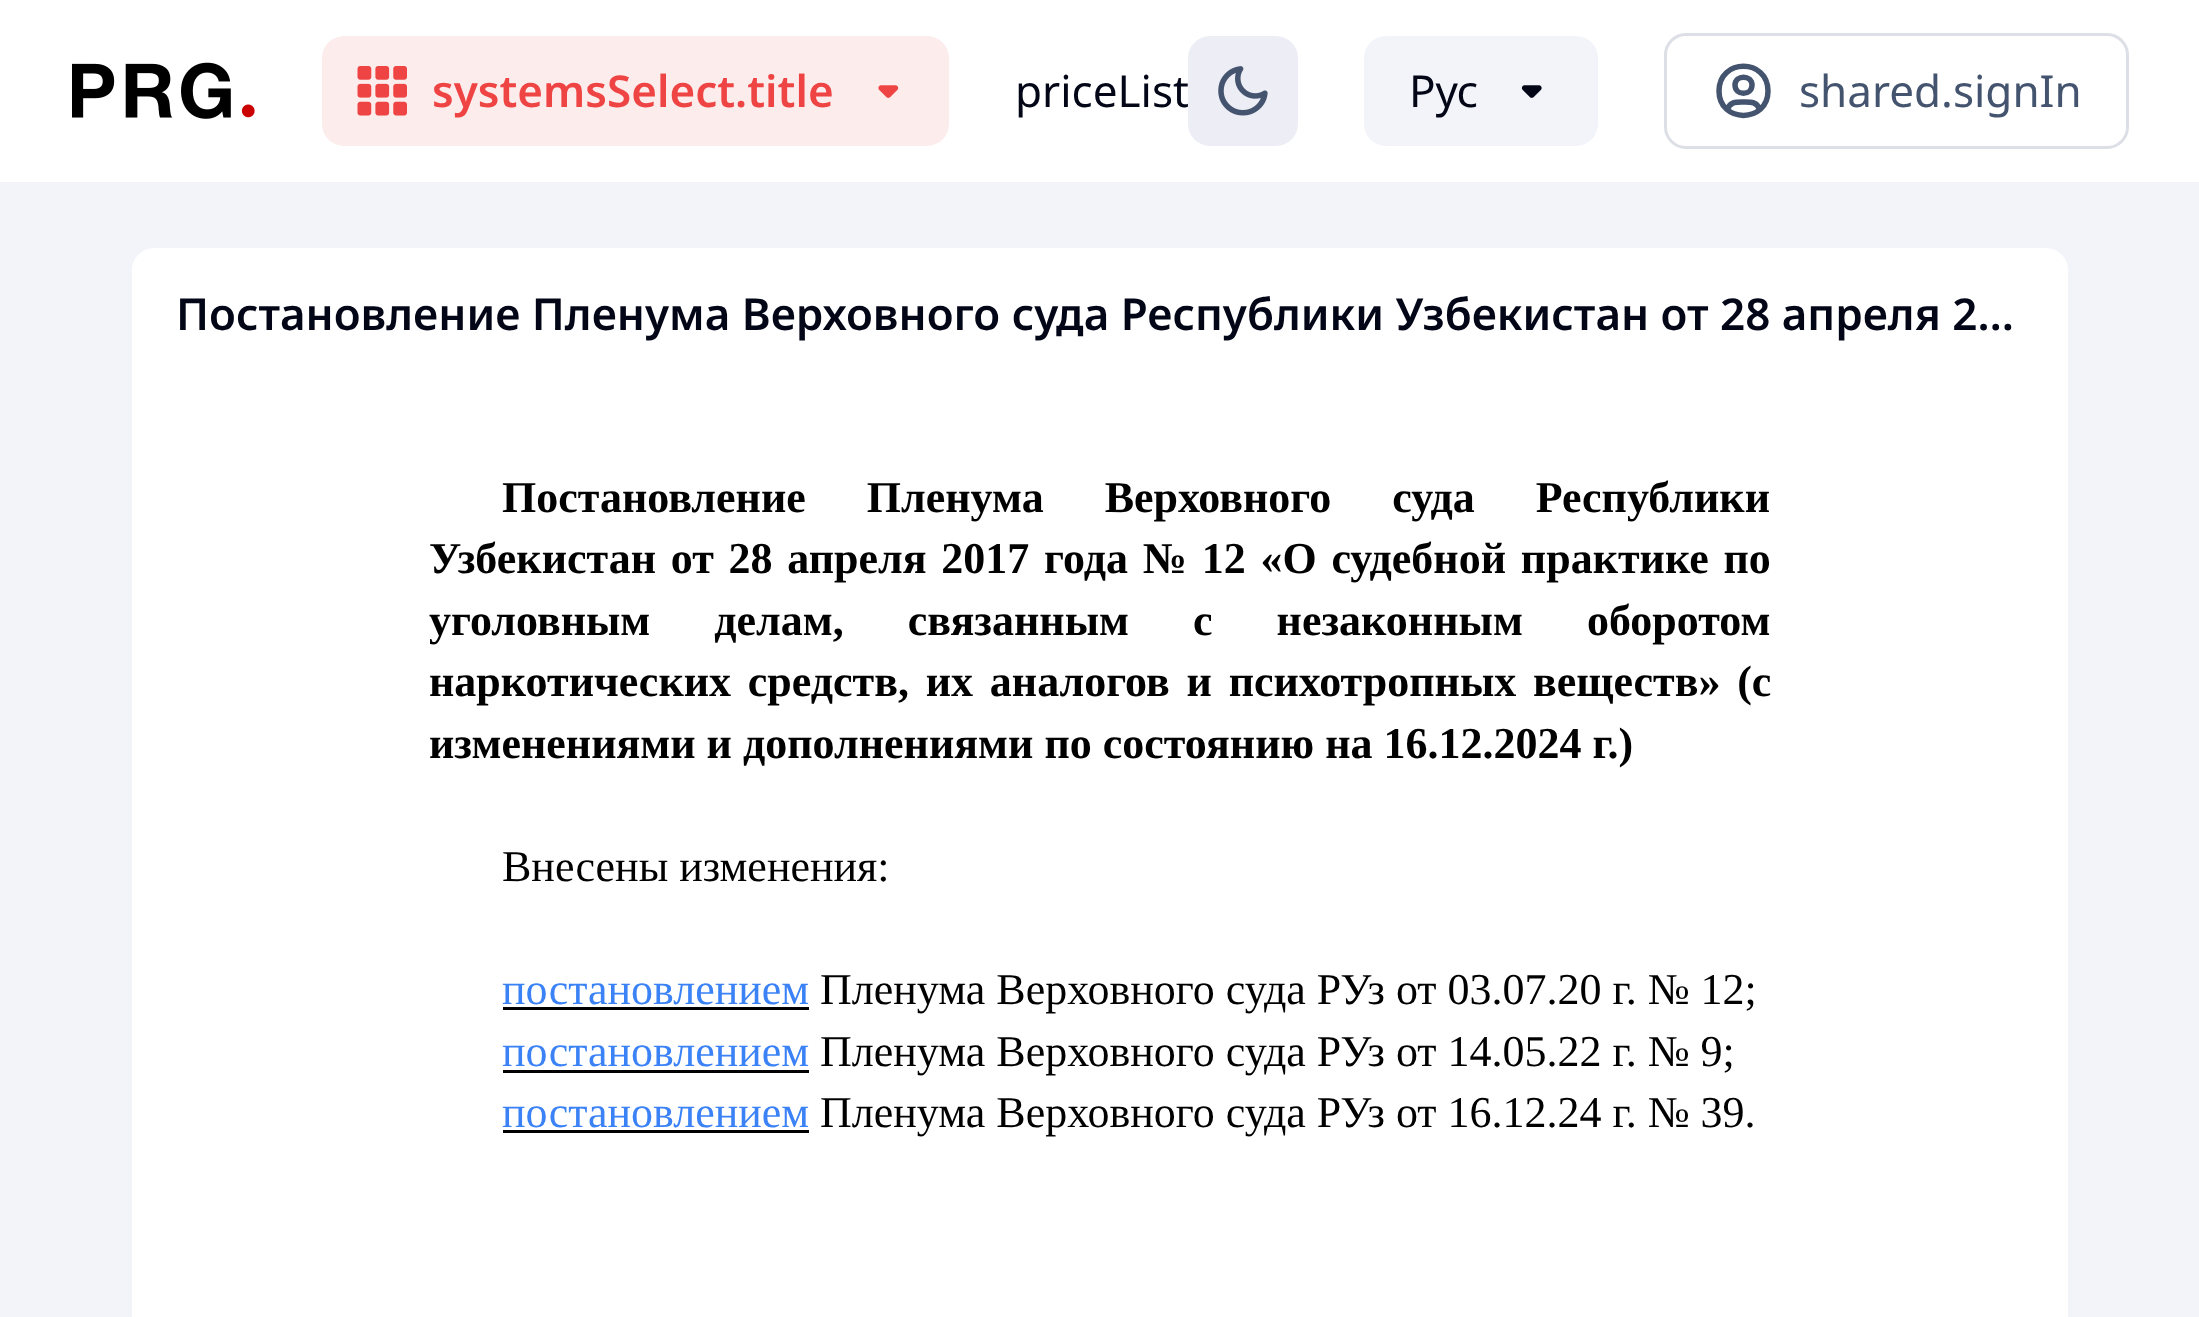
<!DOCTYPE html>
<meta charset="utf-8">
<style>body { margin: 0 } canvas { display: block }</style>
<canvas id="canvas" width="2199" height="1317"></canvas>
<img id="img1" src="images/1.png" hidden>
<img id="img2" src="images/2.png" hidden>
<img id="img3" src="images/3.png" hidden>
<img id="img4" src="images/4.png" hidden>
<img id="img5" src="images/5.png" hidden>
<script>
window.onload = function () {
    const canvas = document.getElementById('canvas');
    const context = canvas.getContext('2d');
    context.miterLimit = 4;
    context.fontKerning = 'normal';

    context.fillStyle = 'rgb(255, 255, 255)';
    context.fillRect(0, 0, 2199, 1317);
    context.drawImage(document.getElementById('img1'), 72, 62, 183, 57);
    context.fillStyle = 'rgb(253, 236, 236)';
    context.beginPath();
    context.roundRect(322, 36, 627, 110, 22);
    context.fill();
    context.drawImage(document.getElementById('img2'), 357, 66, 50, 50);
    context.drawImage(document.getElementById('img3'), 878, 85, 21, 13);
    context.fillStyle = 'rgb(237, 238, 245)';
    context.beginPath();
    context.roundRect(1188, 36, 110, 110, 22);
    context.fill();
    context.drawImage(document.getElementById('img4'), 1218, 66, 50, 50);
    context.fillStyle = 'rgb(242, 244, 249)';
    context.beginPath();
    context.roundRect(1364, 36, 234, 110, 22);
    context.fill();
    context.drawImage(document.getElementById('img5'), 1521, 85, 21, 13);
    context.beginPath();
    context.roundRect(1665.5, 34.5, 462, 113, 20.5);
    context.strokeStyle = 'rgb(220, 223, 229)';
    context.lineWidth = 3;
    context.stroke();
    context.beginPath();
    context.moveTo(1719, 91);
    context.bezierCurveTo(1719, 123.5, 1768, 123.5, 1768, 91);
    context.bezierCurveTo(1768, 58, 1719, 58, 1719, 91);
    context.moveTo(1735, 85);
    context.bezierCurveTo(1735, 96, 1752, 96, 1752, 85);
    context.bezierCurveTo(1752, 74.5, 1735, 74.5, 1735, 85);
    context.moveTo(1727.5, 109.5);
    context.bezierCurveTo(1730, 101.5, 1736.5, 102, 1743.5, 102);
    context.bezierCurveTo(1750.5, 102, 1757, 101.5, 1759.5, 109.5);
    context.strokeStyle = 'rgb(68, 84, 111)';
    context.lineWidth = 5.5;
    context.lineCap = 'round';
    context.lineJoin = 'round';
    context.stroke();
    context.fillStyle = 'rgb(243, 244, 249)';
    context.fillRect(0, 182, 2199, 1135);
    context.fillStyle = 'rgb(255, 255, 255)';
    context.beginPath();
    context.roundRect(132, 248, 1936, 132, [22, 22, 0, 0]);
    context.fill();
    context.fillRect(132, 380, 1936, 937);
    context.fillStyle = 'rgb(0, 0, 0)';
    context.fillRect(503, 1007, 306, 3);
    context.fillRect(503, 1070, 306, 3);
    context.fillRect(503, 1130, 306, 3);
    context.font = '600 44px Noto Sans';
    context.fillStyle = 'rgb(239, 68, 68)';
    context.fillText('systemsSelect.title', 432, 107);
    context.font = '44px Noto Sans';
    context.fillStyle = 'rgb(2, 6, 23)';
    context.fillText('priceList', 1015, 107);
    context.fillText('Рус', 1409, 107);
    context.fillStyle = 'rgb(68, 84, 111)';
    context.fillText('shared.signIn', 1799, 107);
    context.font = '600 44px Noto Sans';
    context.fillStyle = 'rgb(2, 6, 23)';
    context.fillText('Постановление Пленума Верховного суда Республики Узбекистан от 28 апреля 2…', 176, 330);
    context.wordSpacing = '50px';
    context.font = 'bold 44px Liberation Serif';
    context.fillStyle = 'rgb(0, 0, 0)';
    context.fillText('Постановление Пленума Верховного суда Республики', 502, 512);
    context.wordSpacing = '3.75px';
    context.fillText('Узбекистан от 28 апреля 2017 года № 12 «О судебной практике по', 429, 573);
    context.wordSpacing = '53px';
    context.fillText('уголовным делам, связанным с незаконным оборотом', 429, 635);
    context.wordSpacing = '5.75px';
    context.fillText('наркотических средств, их аналогов и психотропных веществ» (с', 429, 696);
    context.wordSpacing = '0px';
    context.fillText('изменениями и дополнениями по состоянию на 16.12.2024 г.)', 429, 758);
    context.font = '44px Liberation Serif';
    context.fillText('Внесены изменения:', 502, 881);
    context.fillStyle = 'rgb(59, 130, 246)';
    context.fillText('постановлением', 502, 1004);
    context.fillStyle = 'rgb(0, 0, 0)';
    context.fillText('Пленума Верховного суда РУз от 03.07.20 г. № 12;', 820, 1004);
    context.fillStyle = 'rgb(59, 130, 246)';
    context.fillText('постановлением', 502, 1066);
    context.fillStyle = 'rgb(0, 0, 0)';
    context.fillText('Пленума Верховного суда РУз от 14.05.22 г. № 9;', 820, 1066);
    context.fillStyle = 'rgb(59, 130, 246)';
    context.fillText('постановлением', 502, 1127);
    context.fillStyle = 'rgb(0, 0, 0)';
    context.fillText('Пленума Верховного суда РУз от 16.12.24 г. № 39.', 820, 1127);
};
</script>
